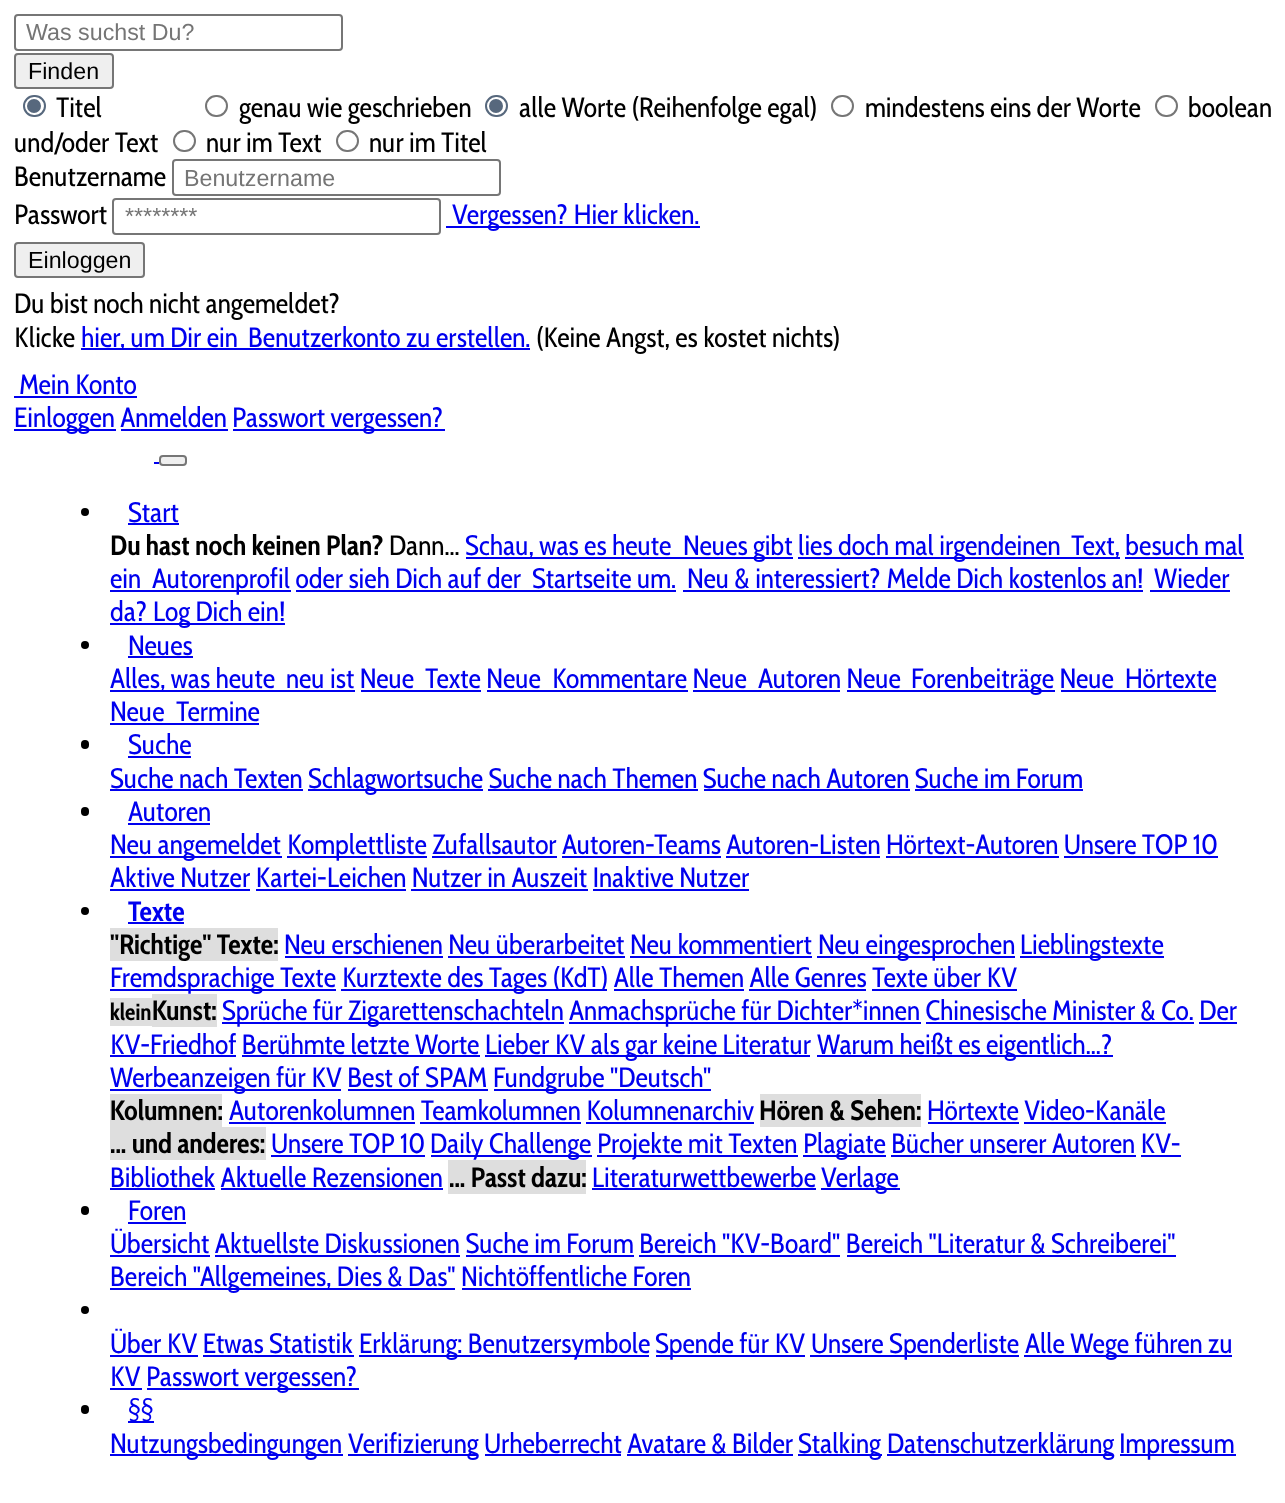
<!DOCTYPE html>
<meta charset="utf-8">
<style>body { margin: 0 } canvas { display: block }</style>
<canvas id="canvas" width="1285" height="1503"></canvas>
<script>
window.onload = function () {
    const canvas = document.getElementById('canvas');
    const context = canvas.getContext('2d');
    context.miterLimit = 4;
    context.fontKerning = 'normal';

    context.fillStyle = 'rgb(255, 255, 255)';
    context.fillRect(0, 0, 1285, 1503);
    context.beginPath();
    context.roundRect(15, 15, 327, 35, 3);
    context.strokeStyle = 'rgb(118, 118, 118)';
    context.lineWidth = 2;
    context.stroke();
    context.fillStyle = 'rgb(239, 239, 239)';
    context.beginPath();
    context.roundRect(15, 54, 98, 34, 3);
    context.fill();
    context.stroke();
    context.beginPath();
    context.roundRect(24, 96, 21, 20, 10);
    context.strokeStyle = 'rgb(87, 104, 125)';
    context.stroke();
    context.fillStyle = 'rgb(87, 104, 125)';
    context.beginPath();
    context.arc(34, 106, 7, 0, 2 * Math.PI);
    context.fill();
    context.beginPath();
    context.roundRect(206, 96, 21, 20, 10);
    context.strokeStyle = 'rgb(118, 118, 118)';
    context.stroke();
    context.beginPath();
    context.roundRect(486, 96, 21, 20, 10);
    context.strokeStyle = 'rgb(87, 104, 125)';
    context.stroke();
    context.beginPath();
    context.arc(496, 106, 7, 0, 2 * Math.PI);
    context.fill();
    context.beginPath();
    context.roundRect(832, 96, 21, 20, 10);
    context.strokeStyle = 'rgb(118, 118, 118)';
    context.stroke();
    context.beginPath();
    context.roundRect(1156, 96, 21, 20, 10);
    context.stroke();
    context.beginPath();
    context.roundRect(174, 131, 21, 20, 10);
    context.stroke();
    context.beginPath();
    context.roundRect(337, 131, 21, 20, 10);
    context.stroke();
    context.beginPath();
    context.roundRect(173, 160, 327, 35, 3);
    context.stroke();
    context.beginPath();
    context.roundRect(113, 199, 327, 35, 3);
    context.stroke();
    context.fillStyle = 'rgb(0, 0, 238)';
    context.fillRect(446, 226, 254, 2);
    context.fillStyle = 'rgb(239, 239, 239)';
    context.beginPath();
    context.roundRect(15, 243, 129, 34, 3);
    context.fill();
    context.stroke();
    context.fillStyle = 'rgb(0, 0, 238)';
    context.fillRect(81, 348, 449, 2);
    context.fillRect(14, 396, 123, 2);
    context.fillRect(14, 429, 102, 2);
    context.fillRect(233, 429, 212, 2);
    context.fillRect(121, 429, 107, 2);
    context.fillRect(154, 462, 5, 2);
    context.fillStyle = 'rgb(239, 239, 239)';
    context.beginPath();
    context.roundRect(160, 456, 26, 9, 3);
    context.fill();
    context.stroke();
    context.fillStyle = 'rgb(0, 0, 0)';
    context.beginPath();
    context.arc(85, 512, 4, 0, 2 * Math.PI);
    context.fill();
    context.fillStyle = 'rgb(0, 0, 238)';
    context.fillRect(128, 523, 51, 2);
    context.fillRect(466, 557, 327, 2);
    context.fillRect(798, 557, 322, 2);
    context.fillRect(1125, 557, 119, 2);
    context.fillRect(110, 590, 181, 2);
    context.fillRect(296, 590, 380, 2);
    context.fillRect(683, 590, 460, 2);
    context.fillRect(1150, 590, 80, 2);
    context.fillRect(110, 623, 175, 2);
    context.fillStyle = 'rgb(0, 0, 0)';
    context.beginPath();
    context.arc(85, 645, 4, 0, 2 * Math.PI);
    context.fill();
    context.fillStyle = 'rgb(0, 0, 238)';
    context.fillRect(128, 656, 65, 2);
    context.fillRect(110, 690, 245, 2);
    context.fillRect(361, 690, 120, 2);
    context.fillRect(487, 690, 201, 2);
    context.fillRect(693, 690, 147, 2);
    context.fillRect(847, 690, 208, 2);
    context.fillRect(1061, 690, 155, 2);
    context.fillRect(110, 723, 149, 2);
    context.fillStyle = 'rgb(0, 0, 0)';
    context.beginPath();
    context.roundRect(81, 740, 8, 9, 4);
    context.fill();
    context.fillStyle = 'rgb(0, 0, 238)';
    context.fillRect(128, 756, 63, 2);
    context.fillRect(110, 789, 193, 2);
    context.fillRect(308, 789, 175, 2);
    context.fillRect(488, 789, 210, 2);
    context.fillRect(704, 789, 206, 2);
    context.fillRect(915, 789, 168, 2);
    context.fillStyle = 'rgb(0, 0, 0)';
    context.beginPath();
    context.roundRect(81, 807, 8, 9, 4);
    context.fill();
    context.fillStyle = 'rgb(0, 0, 238)';
    context.fillRect(128, 823, 82, 2);
    context.fillRect(110, 856, 172, 2);
    context.fillRect(287, 856, 140, 2);
    context.fillRect(432, 856, 125, 2);
    context.fillRect(562, 856, 159, 2);
    context.fillRect(726, 856, 154, 2);
    context.fillRect(886, 856, 173, 2);
    context.fillRect(1064, 856, 154, 2);
    context.fillRect(110, 889, 140, 2);
    context.fillRect(256, 889, 150, 2);
    context.fillRect(411, 889, 177, 2);
    context.fillRect(593, 889, 156, 2);
    context.fillStyle = 'rgb(0, 0, 0)';
    context.beginPath();
    context.arc(85, 911, 4, 0, 2 * Math.PI);
    context.fill();
    context.fillStyle = 'rgb(0, 0, 238)';
    context.fillRect(128, 922, 56, 2);
    context.fillStyle = 'rgb(222, 222, 222)';
    context.fillRect(110, 928, 168, 33);
    context.fillStyle = 'rgb(0, 0, 238)';
    context.fillRect(285, 956, 158, 2);
    context.fillRect(817, 956, 198, 2);
    context.fillRect(1020, 956, 144, 2);
    context.fillRect(448, 956, 177, 2);
    context.fillRect(630, 956, 182, 2);
    context.fillRect(110, 989, 226, 2);
    context.fillRect(341, 989, 266, 2);
    context.fillRect(614, 989, 130, 2);
    context.fillRect(749, 989, 117, 2);
    context.fillRect(872, 989, 145, 2);
    context.fillStyle = 'rgb(222, 222, 222)';
    context.fillRect(110, 998, 42, 28);
    context.fillRect(152, 994, 65, 33);
    context.fillStyle = 'rgb(0, 0, 238)';
    context.fillRect(222, 1022, 342, 2);
    context.fillRect(569, 1022, 352, 2);
    context.fillRect(926, 1022, 268, 2);
    context.fillRect(1199, 1022, 38, 2);
    context.fillRect(110, 1055, 126, 2);
    context.fillRect(485, 1055, 325, 2);
    context.fillRect(817, 1055, 296, 2);
    context.fillRect(242, 1055, 238, 2);
    context.fillRect(110, 1089, 231, 2);
    context.fillRect(494, 1089, 217, 2);
    context.fillRect(348, 1089, 140, 2);
    context.fillStyle = 'rgb(222, 222, 222)';
    context.fillRect(110, 1094, 112, 33);
    context.fillStyle = 'rgb(0, 0, 238)';
    context.fillRect(229, 1122, 186, 2);
    context.fillStyle = 'rgb(222, 222, 222)';
    context.fillRect(760, 1094, 161, 33);
    context.fillStyle = 'rgb(0, 0, 238)';
    context.fillRect(928, 1122, 91, 2);
    context.fillRect(420, 1122, 161, 2);
    context.fillRect(586, 1122, 168, 2);
    context.fillRect(1024, 1122, 142, 2);
    context.fillStyle = 'rgb(222, 222, 222)';
    context.fillRect(110, 1127, 156, 33);
    context.fillStyle = 'rgb(0, 0, 238)';
    context.fillRect(271, 1155, 154, 2);
    context.fillRect(431, 1155, 161, 2);
    context.fillRect(597, 1155, 201, 2);
    context.fillRect(803, 1155, 83, 2);
    context.fillRect(891, 1155, 245, 2);
    context.fillRect(1141, 1155, 40, 2);
    context.fillRect(110, 1188, 105, 2);
    context.fillStyle = 'rgb(222, 222, 222)';
    context.fillRect(448, 1160, 138, 34);
    context.fillStyle = 'rgb(0, 0, 238)';
    context.fillRect(592, 1188, 224, 2);
    context.fillRect(821, 1188, 79, 2);
    context.fillRect(221, 1188, 222, 2);
    context.fillStyle = 'rgb(0, 0, 0)';
    context.beginPath();
    context.roundRect(81, 1206, 8, 9, 4);
    context.fill();
    context.fillStyle = 'rgb(0, 0, 238)';
    context.fillRect(128, 1222, 58, 2);
    context.fillRect(110, 1255, 100, 2);
    context.fillRect(215, 1255, 245, 2);
    context.fillRect(466, 1255, 168, 2);
    context.fillRect(639, 1255, 201, 2);
    context.fillRect(847, 1255, 329, 2);
    context.fillRect(110, 1288, 345, 2);
    context.fillRect(462, 1288, 229, 2);
    context.fillStyle = 'rgb(0, 0, 0)';
    context.beginPath();
    context.arc(85, 1310, 4, 0, 2 * Math.PI);
    context.fill();
    context.fillStyle = 'rgb(0, 0, 238)';
    context.fillRect(110, 1355, 88, 2);
    context.fillRect(359, 1355, 290, 2);
    context.fillRect(656, 1355, 149, 2);
    context.fillRect(810, 1355, 209, 2);
    context.fillRect(1024, 1355, 208, 2);
    context.fillRect(203, 1355, 151, 2);
    context.fillRect(110, 1388, 32, 2);
    context.fillRect(147, 1388, 212, 2);
    context.fillStyle = 'rgb(0, 0, 0)';
    context.beginPath();
    context.roundRect(81, 1405, 8, 9, 4);
    context.fill();
    context.fillStyle = 'rgb(0, 0, 238)';
    context.fillRect(128, 1421, 26, 2);
    context.fillRect(110, 1454, 233, 2);
    context.fillRect(348, 1454, 130, 2);
    context.fillRect(798, 1454, 84, 2);
    context.fillRect(887, 1454, 226, 2);
    context.fillRect(1120, 1454, 116, 2);
    context.fillRect(485, 1454, 136, 2);
    context.fillRect(627, 1454, 166, 2);
    context.font = '23.25px Liberation Sans';
    context.fillStyle = 'rgb(117, 117, 117)';
    context.fillText('Was suchst Du?', 26, 40);
    context.fillStyle = 'rgb(0, 0, 0)';
    context.fillText('Finden', 28, 79);
    context.font = '28px Cabin Condensed';
    context.fillText('Titel', 56, 117);
    context.fillText('genau wie geschrieben', 239, 117);
    context.fillText('alle Worte (Reihenfolge egal)', 519, 117);
    context.fillText('mindestens eins der Worte', 865, 117);
    context.fillText('boolean', 1188, 117);
    context.fillText('und/oder Text', 14, 152);
    context.fillText('nur im Text', 206, 152);
    context.fillText('nur im Titel', 369, 152);
    context.fillText('Benutzername', 14, 186);
    context.font = '23.25px Liberation Sans';
    context.fillStyle = 'rgb(117, 117, 117)';
    context.fillText('Benutzername', 184, 186);
    context.font = '28px Cabin Condensed';
    context.fillStyle = 'rgb(0, 0, 0)';
    context.fillText('Passwort', 14, 224);
    context.font = '23.25px Liberation Sans';
    context.fillStyle = 'rgb(117, 117, 117)';
    context.fillText('********', 125, 224);
    context.font = '28px Cabin Condensed';
    context.fillStyle = 'rgb(0, 0, 238)';
    context.fillText('Vergessen? Hier klicken.', 452, 224);
    context.font = '23.25px Liberation Sans';
    context.fillStyle = 'rgb(0, 0, 0)';
    context.fillText('Einloggen', 28, 268);
    context.font = '28px Cabin Condensed';
    context.fillText('Du bist noch nicht angemeldet?', 14, 313);
    context.fillText('Klicke', 14, 347);
    context.fillStyle = 'rgb(0, 0, 238)';
    context.fillText('hier, um Dir ein', 81, 347);
    context.fillText('Benutzerkonto zu erstellen.', 248, 347);
    context.fillStyle = 'rgb(0, 0, 0)';
    context.fillText('(Keine Angst, es kostet nichts)', 536, 347);
    context.fillStyle = 'rgb(0, 0, 238)';
    context.fillText('Mein Konto', 19, 394);
    context.fillText('Einloggen Anmelden', 14, 427);
    context.fillText('Passwort vergessen?', 232, 427);
    context.fillText('Start', 128, 522);
    context.font = 'bold 28px Cabin Condensed';
    context.fillStyle = 'rgb(0, 0, 0)';
    context.fillText('Du hast noch keinen Plan?', 110, 555);
    context.font = '28px Cabin Condensed';
    context.fillText('Dann...', 389, 555);
    context.fillStyle = 'rgb(0, 0, 238)';
    context.fillText('Schau, was es heute', 465, 555);
    context.fillText('Neues gibt', 683, 555);
    context.fillText('lies doch mal irgendeinen', 798, 555);
    context.fillText('Text, besuch mal', 1071, 555);
    context.fillText('ein', 110, 588);
    context.fillText('Autorenprofil oder sieh Dich auf der', 152, 588);
    context.fillText('Startseite um.', 532, 588);
    context.fillText('Neu & interessiert? Melde Dich kostenlos an!', 687, 588);
    context.fillText('Wieder', 1154, 588);
    context.fillText('da? Log Dich ein!', 110, 621);
    context.fillText('Neues', 128, 655);
    context.fillText('Alles, was heute', 110, 688);
    context.fillText('neu ist Neue', 286, 688);
    context.fillText('Texte Neue', 425, 688);
    context.fillText('Kommentare Neue', 552, 688);
    context.fillText('Autoren Neue', 758, 688);
    context.fillText('Forenbeiträge Neue', 911, 688);
    context.fillText('Hörtexte', 1125, 688);
    context.fillText('Neue', 110, 721);
    context.fillText('Termine', 176, 721);
    context.fillText('Suche', 128, 754);
    context.fillText('Suche nach Texten', 110, 788);
    context.fillText('Schlagwortsuche Suche nach Themen Suche nach Autoren Suche im Forum', 308, 788);
    context.fillText('Autoren', 128, 821);
    context.fillText('Neu angemeldet', 110, 854);
    context.fillText('Komplettliste Zufallsautor Autoren-Teams Autoren-Listen Hörtext-Autoren Unsere TOP 10', 287, 854);
    context.fillText('Aktive Nutzer Kartei-Leichen Nutzer in Auszeit Inaktive Nutzer', 110, 887);
    context.font = 'bold 28px Cabin Condensed';
    context.fillText('Texte', 128, 921);
    context.fillStyle = 'rgb(0, 0, 0)';
    context.fillText('"Richtige" Texte:', 110, 954);
    context.font = '28px Cabin Condensed';
    context.fillStyle = 'rgb(0, 0, 238)';
    context.fillText('Neu erschienen Neu überarbeitet Neu kommentiert', 284, 954);
    context.fillText('Neu eingesprochen', 818, 954);
    context.fillText('Lieblingstexte', 1020, 954);
    context.fillText('Fremdsprachige Texte', 110, 987);
    context.fillText('Kurztexte des Tages (KdT) Alle Themen Alle Genres Texte über KV', 342, 987);
    context.font = 'bold 23.25px Cabin Condensed';
    context.fillStyle = 'rgb(0, 0, 0)';
    context.fillText('klein', 110, 1020);
    context.font = 'bold 28px Cabin Condensed';
    context.fillText('Kunst:', 152, 1020);
    context.font = '28px Cabin Condensed';
    context.fillStyle = 'rgb(0, 0, 238)';
    context.fillText('Sprüche für Zigarettenschachteln', 222, 1020);
    context.fillText('Anmachsprüche für Dichter*innen Chinesische Minister & Co. Der', 569, 1020);
    context.fillText('KV-Friedhof Berühmte letzte Worte', 110, 1054);
    context.fillText('Lieber KV als gar keine Literatur', 485, 1054);
    context.fillText('Warum heißt es eigentlich...?', 817, 1054);
    context.fillText('Werbeanzeigen für KV Best of SPAM', 110, 1087);
    context.fillText('Fundgrube "Deutsch"', 493, 1087);
    context.font = 'bold 28px Cabin Condensed';
    context.fillStyle = 'rgb(0, 0, 0)';
    context.fillText('Kolumnen:', 110, 1120);
    context.font = '28px Cabin Condensed';
    context.fillStyle = 'rgb(0, 0, 238)';
    context.fillText('Autorenkolumnen Teamkolumnen Kolumnenarchiv', 229, 1120);
    context.font = 'bold 28px Cabin Condensed';
    context.fillStyle = 'rgb(0, 0, 0)';
    context.fillText('Hören & Sehen:', 759, 1120);
    context.font = '28px Cabin Condensed';
    context.fillStyle = 'rgb(0, 0, 238)';
    context.fillText('Hörtexte Video-Kanäle', 927, 1120);
    context.font = 'bold 28px Cabin Condensed';
    context.fillStyle = 'rgb(0, 0, 0)';
    context.fillText('... und anderes:', 110, 1153);
    context.font = '28px Cabin Condensed';
    context.fillStyle = 'rgb(0, 0, 238)';
    context.fillText('Unsere TOP 10', 271, 1153);
    context.fillText('Daily Challenge', 430, 1153);
    context.fillText('Projekte mit Texten', 597, 1153);
    context.fillText('Plagiate Bücher unserer Autoren KV-', 803, 1153);
    context.fillText('Bibliothek Aktuelle Rezensionen', 110, 1187);
    context.font = 'bold 28px Cabin Condensed';
    context.fillStyle = 'rgb(0, 0, 0)';
    context.fillText('... Passt dazu:', 449, 1187);
    context.font = '28px Cabin Condensed';
    context.fillStyle = 'rgb(0, 0, 238)';
    context.fillText('Literaturwettbewerbe', 592, 1187);
    context.fillText('Verlage', 821, 1187);
    context.fillText('Foren', 128, 1220);
    context.fillText('Übersicht Aktuellste Diskussionen Suche im Forum Bereich "KV-Board" Bereich "Literatur & Schreiberei"', 110, 1253);
    context.fillText('Bereich "Allgemeines, Dies & Das" Nichtöffentliche Foren', 110, 1286);
    context.fillText('Über KV Etwas Statistik', 110, 1353);
    context.fillText('Erklärung: Benutzersymbole', 359, 1353);
    context.fillText('Spende für KV', 655, 1353);
    context.fillText('Unsere Spenderliste', 811, 1353);
    context.fillText('Alle Wege führen zu', 1025, 1353);
    context.fillText('KV', 110, 1386);
    context.fillText('Passwort vergessen?', 146, 1386);
    context.fillText('§§', 128, 1419);
    context.fillText('Nutzungsbedingungen', 110, 1453);
    context.fillText('Verifizierung Urheberrecht Avatare & Bilder', 348, 1453);
    context.fillText('Stalking', 798, 1453);
    context.fillText('Datenschutzerklärung', 887, 1453);
    context.fillText('Impressum', 1119, 1453);
};
</script>
